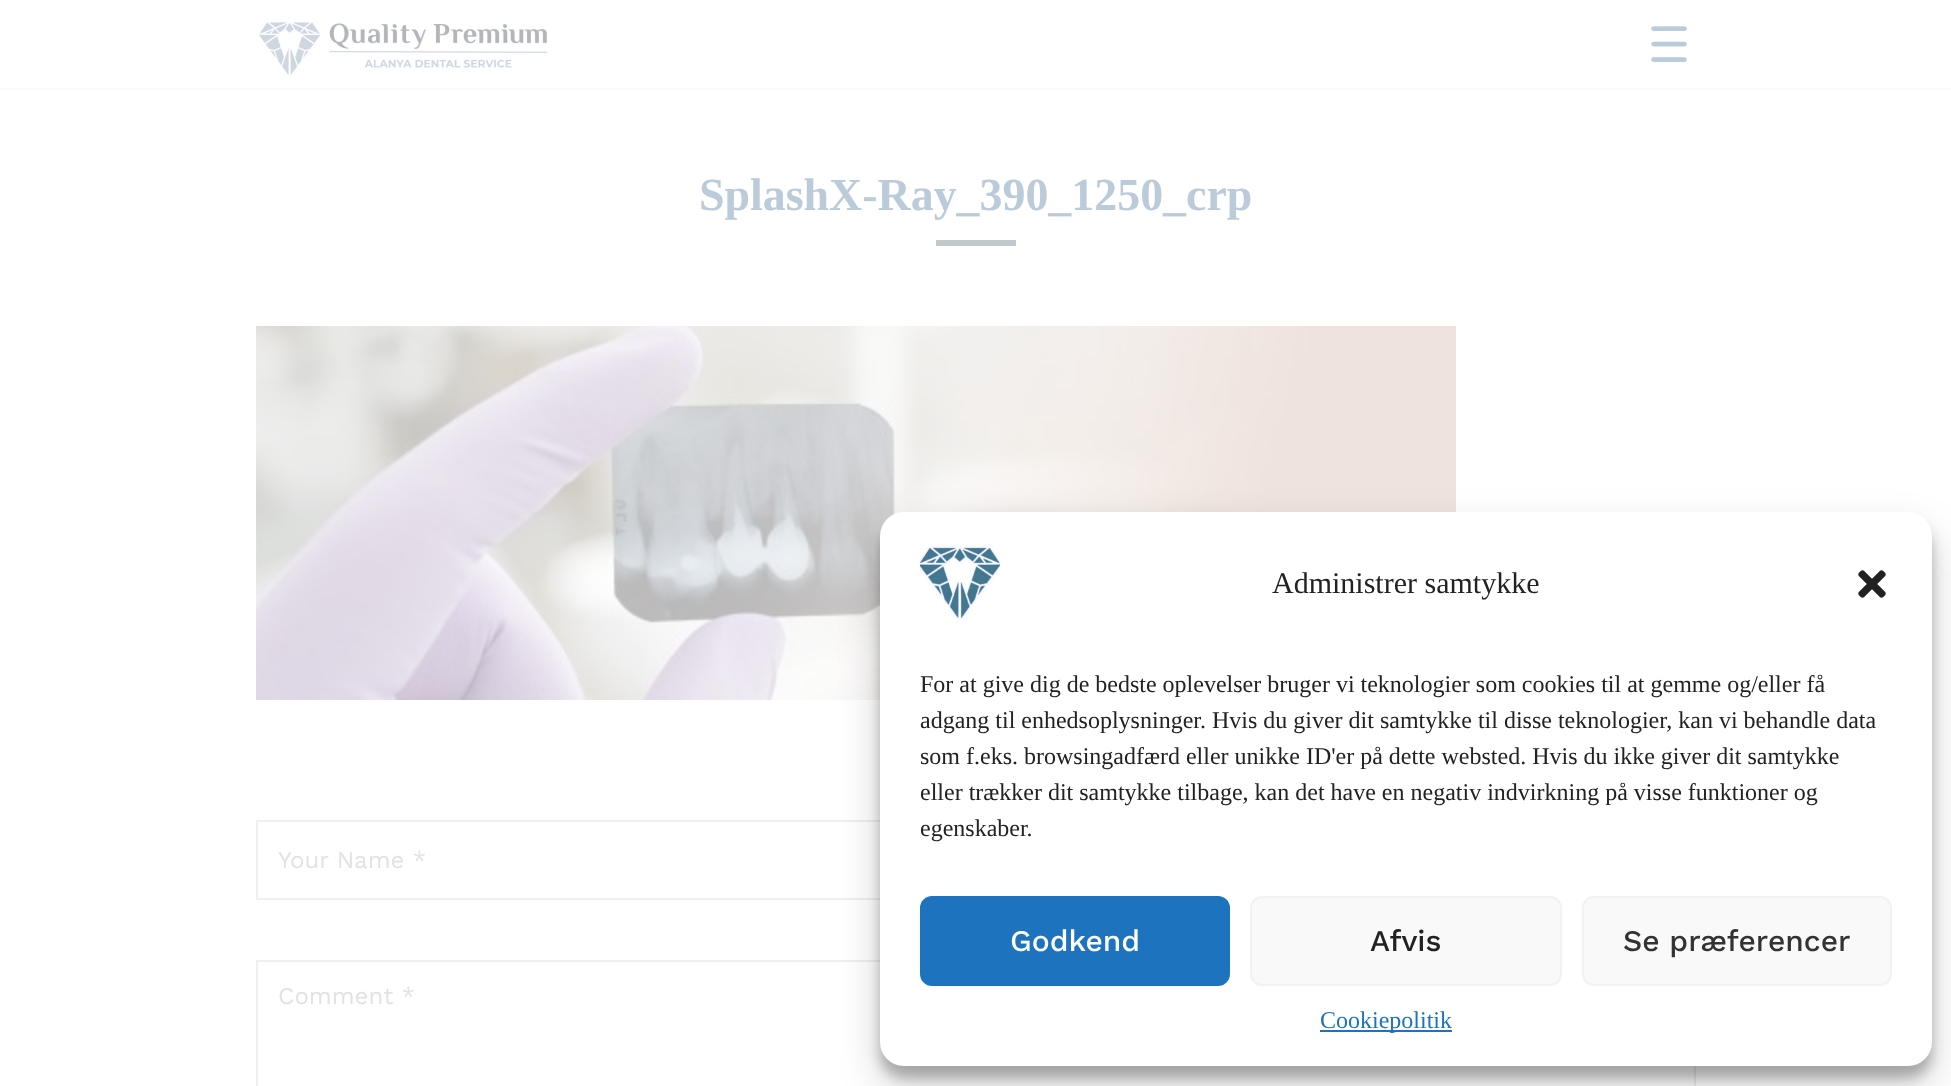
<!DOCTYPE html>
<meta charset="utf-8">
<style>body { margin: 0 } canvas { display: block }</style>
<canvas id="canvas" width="1951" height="1086"></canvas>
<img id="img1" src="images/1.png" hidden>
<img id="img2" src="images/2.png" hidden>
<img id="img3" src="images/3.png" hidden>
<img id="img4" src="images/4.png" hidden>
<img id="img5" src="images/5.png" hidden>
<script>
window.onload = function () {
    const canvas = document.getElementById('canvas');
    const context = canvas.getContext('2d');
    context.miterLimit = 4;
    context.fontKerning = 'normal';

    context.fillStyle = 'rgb(255, 255, 255)';
    context.fillRect(0, 0, 1951, 1086);
    context.fillStyle = 'rgb(250, 250, 250)';
    context.fillRect(0, 88, 1951, 2);
    context.drawImage(document.getElementById('img1'), 256, 18, 292, 60);
    context.drawImage(document.getElementById('img2'), 1651, 26, 36, 36);
    context.fillStyle = 'rgb(193, 201, 207)';
    context.fillRect(936, 240, 80, 6);
    context.drawImage(document.getElementById('img3'), 256, 326, 1200, 374);
    context.strokeStyle = 'rgb(239, 239, 240)';
    context.lineWidth = 2;
    context.strokeRect(257, 821, 688, 78);
    context.strokeRect(257, 961, 1438, 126);
    context.fillStyle = 'rgba(0, 0, 0, 0.23)';
    context.filter = 'blur(6px)';
    context.beginPath();
    context.roundRect(880, 524, 1052, 554, 24);
    context.fill();
    context.filter = 'none';
    context.fillStyle = 'rgba(0, 0, 0, 0.19)';
    context.filter = 'blur(20px)';
    context.beginPath();
    context.roundRect(880, 532, 1052, 554, 24);
    context.fill();
    context.filter = 'none';
    context.fillStyle = 'rgb(255, 255, 255)';
    context.beginPath();
    context.roundRect(880, 512, 1052, 554, 24);
    context.fill();
    context.drawImage(document.getElementById('img4'), 920, 545, 80, 75);
    context.drawImage(document.getElementById('img5'), 1858, 570, 28, 28);
    context.fillStyle = 'rgb(30, 115, 190)';
    context.beginPath();
    context.roundRect(921, 897, 308, 88, 11);
    context.fill();
    context.strokeStyle = 'rgb(30, 115, 190)';
    context.stroke();
    context.fillStyle = 'rgb(249, 249, 249)';
    context.beginPath();
    context.roundRect(1251, 897, 310, 88, 11);
    context.fill();
    context.strokeStyle = 'rgb(242, 242, 242)';
    context.stroke();
    context.beginPath();
    context.roundRect(1583, 897, 308, 88, 11);
    context.fill();
    context.stroke();
    context.fillStyle = 'rgb(30, 115, 190)';
    context.fillRect(1320, 1030, 132, 2);
    context.font = 'bold 45.9px Liberation Serif';
    context.fillStyle = 'rgb(187, 203, 217)';
    context.fillText('SplashX-Ray_390_1250_crp', 699, 210);
    context.font = '24px Work Sans';
    context.fillStyle = 'rgb(226, 226, 227)';
    context.fillText('Your Name *', 278, 868);
    context.fillText('Comment *', 278, 1004);
    context.font = '30px Liberation Serif';
    context.fillStyle = 'rgb(34, 34, 34)';
    context.fillText('Administrer samtykke', 1272, 593);
    context.font = '24px Liberation Serif';
    context.fillText('For at give dig de bedste oplevelser bruger vi teknologier som cookies til at gemme og/eller få', 920, 692);
    context.fillText('adgang til enhedsoplysninger. Hvis du giver dit samtykke til disse teknologier, kan vi behandle data', 920, 728);
    context.fillText('som f.eks. browsingadfærd eller unikke ID\'er på dette websted. Hvis du ikke giver dit samtykke', 920, 764);
    context.fillText('eller trækker dit samtykke tilbage, kan det have en negativ indvirkning på visse funktioner og', 920, 800);
    context.fillText('egenskaber.', 920, 836);
    context.font = '500 30px Work Sans';
    context.fillStyle = 'rgb(255, 255, 255)';
    context.fillText('Godkend', 1010, 951);
    context.fillStyle = 'rgb(34, 34, 34)';
    context.fillText('Afvis', 1370, 951);
    context.fillStyle = 'rgb(51, 51, 51)';
    context.fillText('Se præferencer', 1623, 951);
    context.font = '24px Liberation Serif';
    context.fillStyle = 'rgb(30, 115, 190)';
    context.fillText('Cookiepolitik', 1320, 1028);
};
</script>
